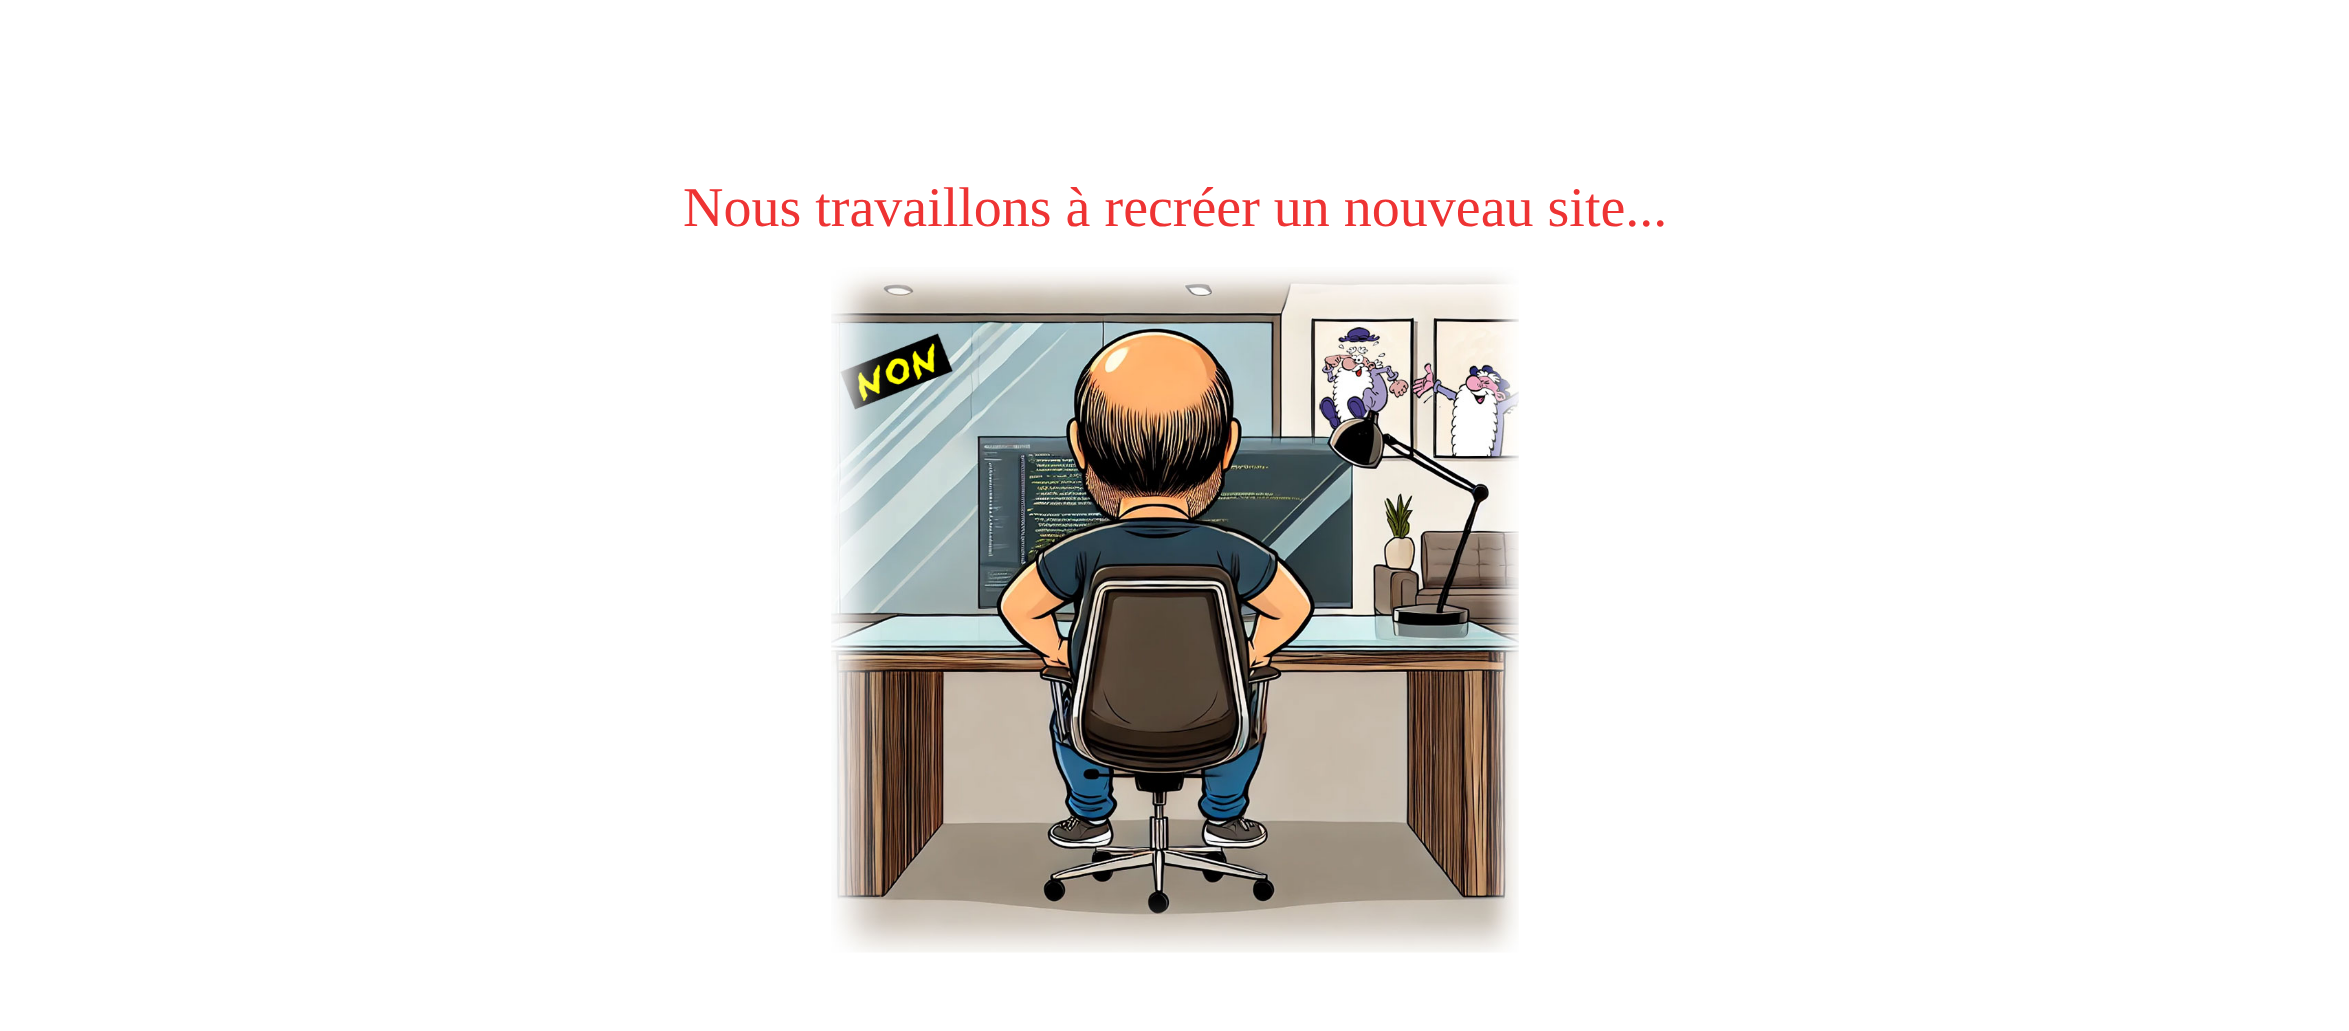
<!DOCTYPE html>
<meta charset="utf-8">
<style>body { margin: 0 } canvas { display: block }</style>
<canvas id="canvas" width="2349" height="1031"></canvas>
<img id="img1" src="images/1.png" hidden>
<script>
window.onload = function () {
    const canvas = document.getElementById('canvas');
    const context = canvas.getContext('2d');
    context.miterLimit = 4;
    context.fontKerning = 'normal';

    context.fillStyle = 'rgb(255, 255, 255)';
    context.fillRect(0, 0, 2349, 1031);
    context.drawImage(document.getElementById('img1'), 831, 267, 688, 686);
    context.font = '56px Liberation Serif';
    context.fillStyle = 'rgb(238, 51, 51)';
    context.fillText('Nous travaillons à recréer un nouveau site...', 683, 226);
};
</script>
